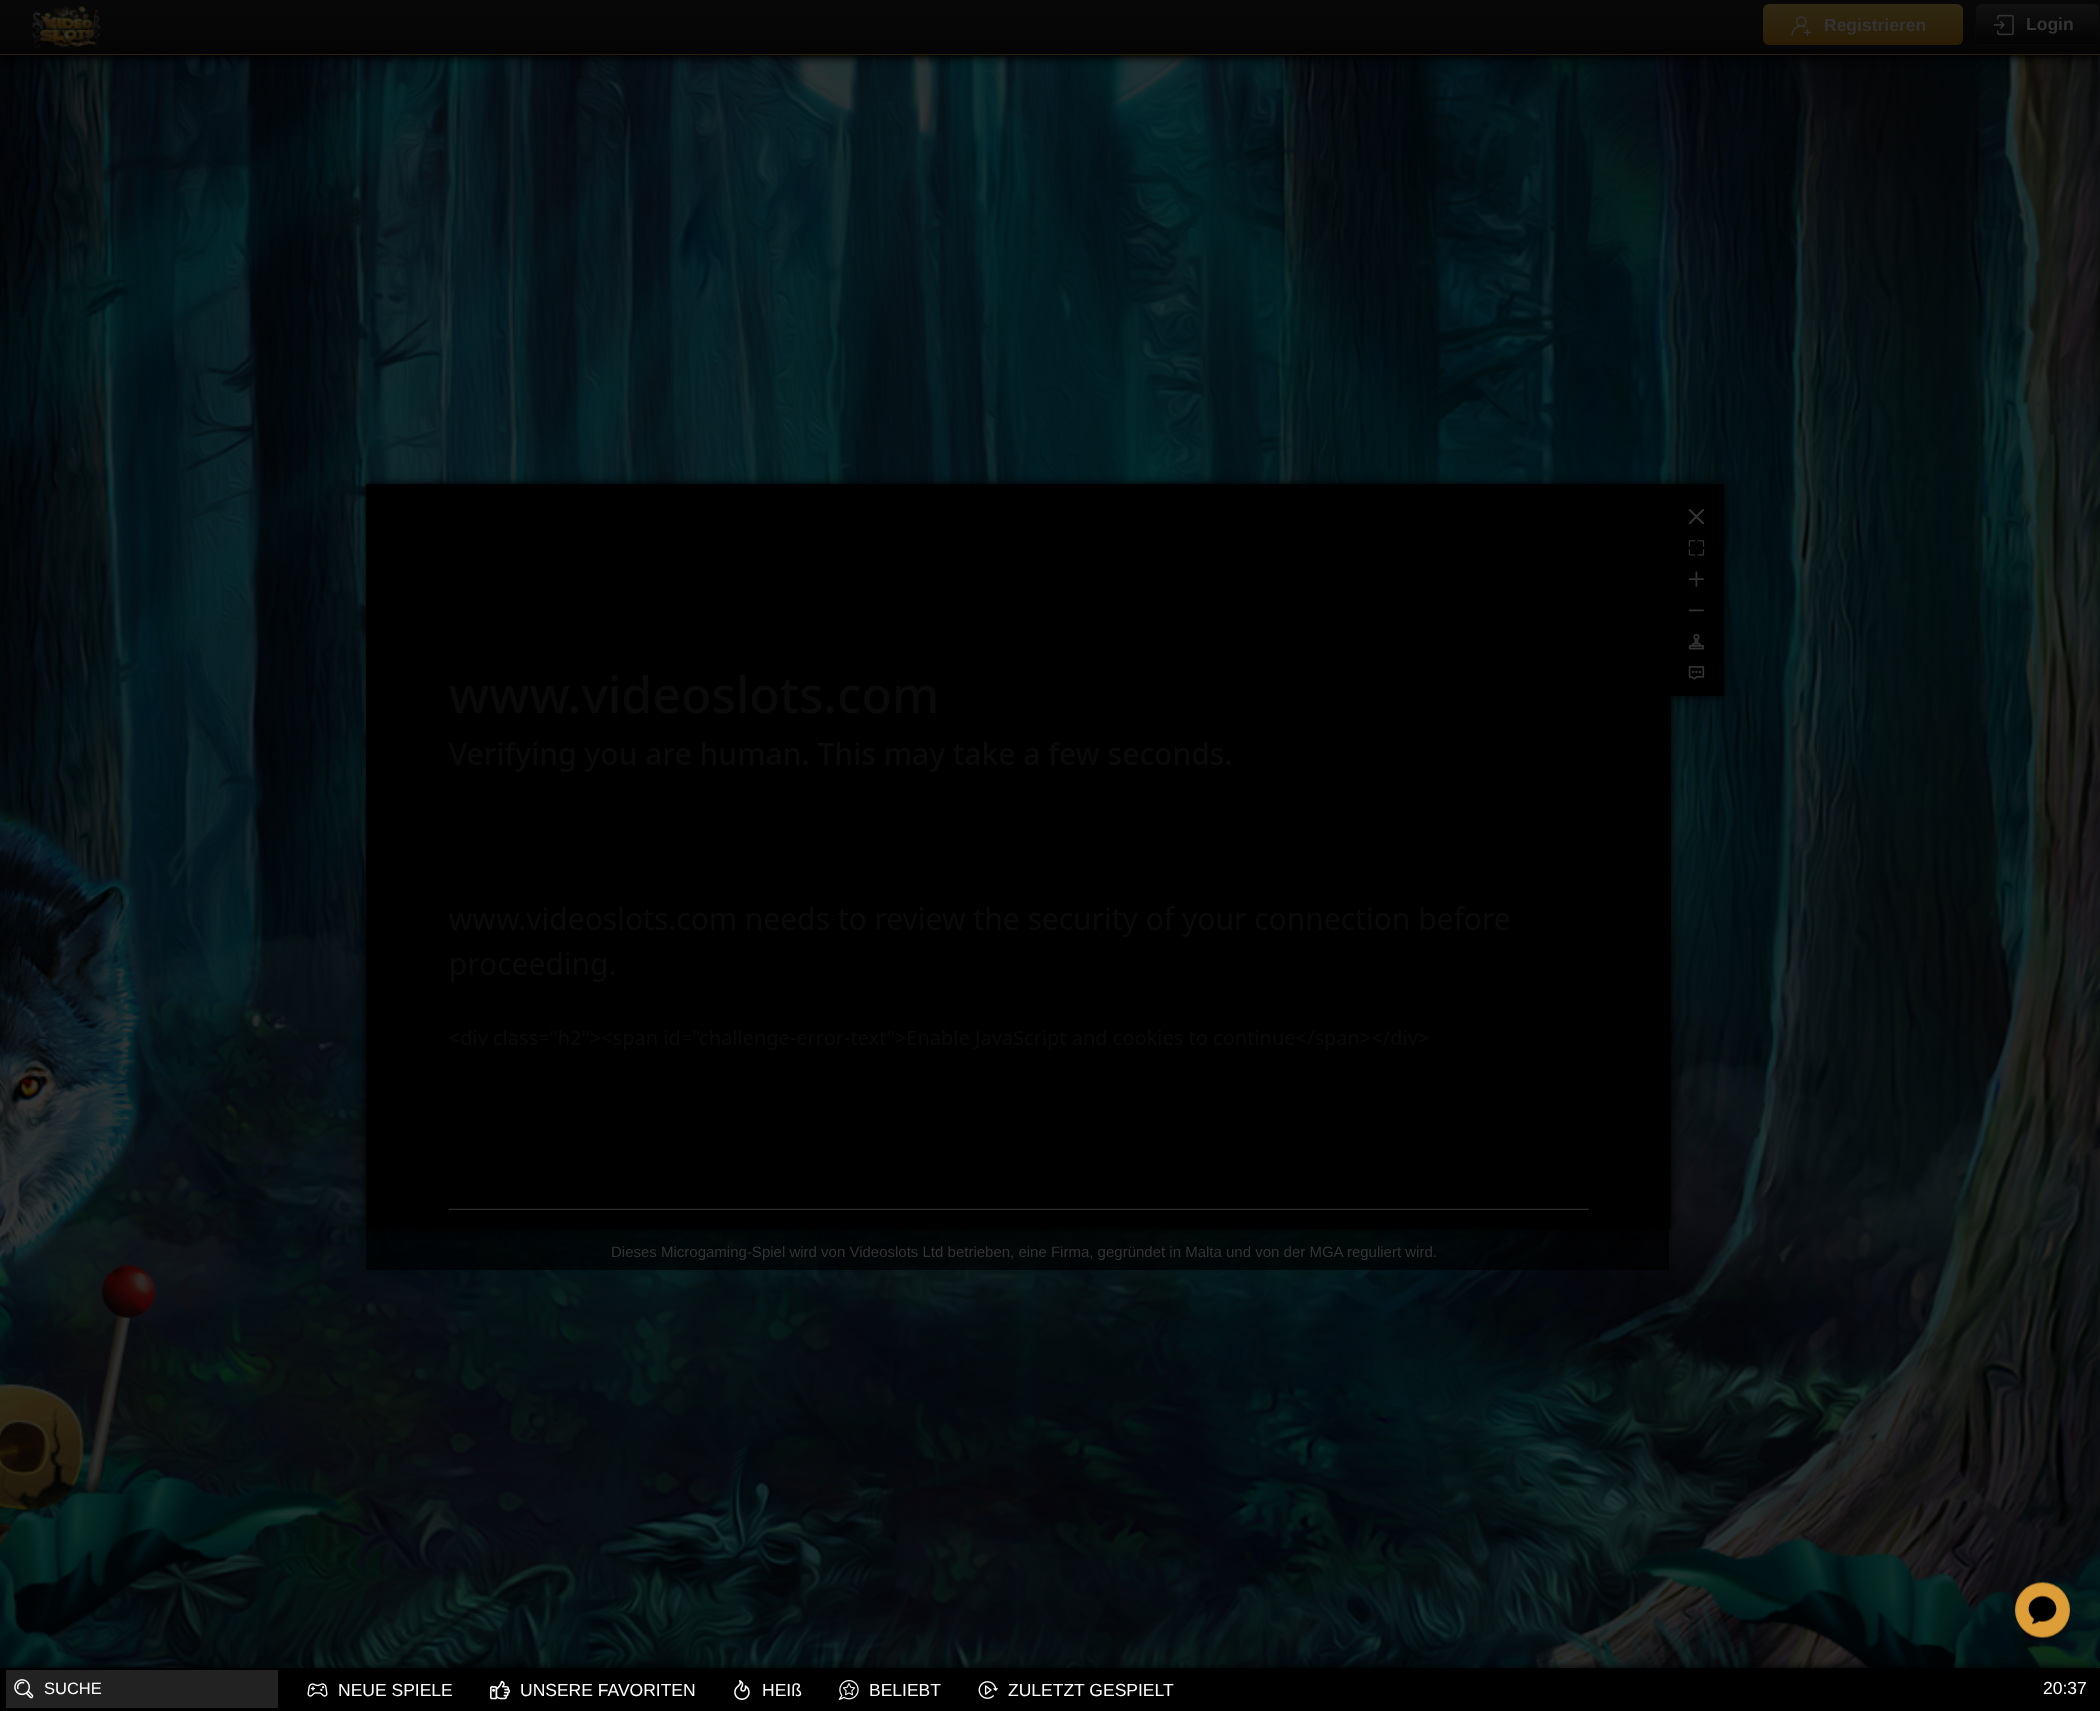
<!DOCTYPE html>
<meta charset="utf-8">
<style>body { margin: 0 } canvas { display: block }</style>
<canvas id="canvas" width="2100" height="1711"></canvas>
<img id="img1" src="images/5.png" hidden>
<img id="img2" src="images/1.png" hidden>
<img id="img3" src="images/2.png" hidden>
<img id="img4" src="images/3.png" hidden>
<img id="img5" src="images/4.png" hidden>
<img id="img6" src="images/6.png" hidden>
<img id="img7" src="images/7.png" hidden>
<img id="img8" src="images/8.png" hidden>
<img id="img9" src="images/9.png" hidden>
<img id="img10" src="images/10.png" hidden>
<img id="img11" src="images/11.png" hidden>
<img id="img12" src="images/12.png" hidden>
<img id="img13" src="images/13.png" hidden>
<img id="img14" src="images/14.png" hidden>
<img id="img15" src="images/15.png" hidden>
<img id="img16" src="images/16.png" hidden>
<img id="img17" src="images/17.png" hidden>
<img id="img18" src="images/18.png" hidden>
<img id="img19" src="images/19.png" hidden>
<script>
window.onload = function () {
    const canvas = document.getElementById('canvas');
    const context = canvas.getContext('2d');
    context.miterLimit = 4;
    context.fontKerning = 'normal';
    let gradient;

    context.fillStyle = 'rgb(255, 255, 255)';
    context.fillRect(0, 0, 2100, 1711);
    context.drawImage(document.getElementById('img1'), 0, 55, 2100, 1613);
    context.fillStyle = 'rgb(0, 0, 0)';
    context.filter = 'blur(4px)';
    context.beginPath();
    context.rect(0, 3, 2100, 55);
    context.fill();
    context.filter = 'none';
    context.drawImage(document.getElementById('img2'), 0, 0, 2100, 54);
    context.fillStyle = 'rgb(41, 31, 10)';
    context.fillRect(0, 54, 2100, 1);
    context.drawImage(document.getElementById('img3'), 32, 6, 69, 43);
    gradient = context.createLinearGradient(1863, 3.7, 1863, 45);
    gradient.addColorStop(0, 'rgb(48, 41, 19)');
    gradient.addColorStop(1, 'rgb(42, 28, 3)');
    context.fillStyle = gradient;
    context.beginPath();
    context.roundRect(1763, 4, 200, 41, 6);
    context.fill();
    context.drawImage(document.getElementById('img4'), 1791, 16, 21, 21);
    context.save();
    context.beginPath();
    context.roundRect(1975, 4, 125, 41, 6);
    context.clip();
    gradient = context.createLinearGradient(2038, 3.7, 2038, 44);
    gradient.addColorStop(0, 'rgb(17, 17, 17)');
    gradient.addColorStop(1, 'rgb(3, 3, 3)');
    context.fillStyle = gradient;
    context.beginPath();
    context.roundRect(1975, 4, 125, 40, [6, 6, 0, 0]);
    context.fill();
    context.restore();
    context.fillStyle = 'rgb(8, 8, 8)';
    context.beginPath();
    context.moveTo(1981, 4);
    context.lineTo(2094, 4);
    context.bezierCurveTo(2097, 4, 2100, 7, 2100, 10);
    context.lineTo(2100, 39);
    context.bezierCurveTo(2100, 42, 2097, 45, 2094, 45);
    context.lineTo(1981, 45);
    context.bezierCurveTo(1978, 45, 1975, 42, 1975, 39);
    context.lineTo(1975, 10);
    context.bezierCurveTo(1975, 7, 1978, 4, 1981, 4);
    context.closePath();
    context.moveTo(1981, 4);
    context.lineTo(2094, 4);
    context.bezierCurveTo(2097, 4, 2099, 7, 2099, 10);
    context.lineTo(2099, 39);
    context.bezierCurveTo(2099, 42, 2097, 44, 2094, 44);
    context.lineTo(1981, 44);
    context.bezierCurveTo(1978, 44, 1976, 42, 1976, 39);
    context.lineTo(1976, 10);
    context.bezierCurveTo(1976, 7, 1978, 4, 1981, 4);
    context.closePath();
    context.fill('evenodd');
    context.drawImage(document.getElementById('img5'), 1993, 14, 21, 22);
    context.fillStyle = 'rgba(0, 0, 0, 0.7)';
    context.fillRect(366, 1229, 1303, 41);
    context.fillStyle = 'rgb(0, 0, 0)';
    context.filter = 'blur(5px)';
    context.beginPath();
    context.rect(0, 1668, 2100, 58);
    context.fill();
    context.filter = 'none';
    context.fillRect(0, 1668, 2100, 43);
    context.fillStyle = 'rgb(34, 34, 34)';
    context.fillRect(6, 1670, 272, 38);
    context.drawImage(document.getElementById('img6'), 14, 1679, 20, 20);
    context.drawImage(document.getElementById('img7'), 307, 1683, 21, 14);
    context.drawImage(document.getElementById('img8'), 490, 1680, 20, 20);
    context.drawImage(document.getElementById('img9'), 734, 1680, 16, 20);
    context.drawImage(document.getElementById('img10'), 838, 1680, 21, 20);
    context.drawImage(document.getElementById('img11'), 978, 1681, 20, 18);
    context.fillStyle = 'rgb(0, 0, 0)';
    context.filter = 'blur(5px)';
    context.beginPath();
    context.rect(366, 484, 1305, 745);
    context.fill();
    context.filter = 'none';
    context.strokeStyle = 'rgb(0, 0, 0)';
    context.lineWidth = 13;
    context.strokeRect(372.5, 490.5, 1292, 732);
    context.filter = 'blur(5px)';
    context.beginPath();
    context.rect(1669, 484, 55, 212);
    context.fill();
    context.filter = 'none';
    context.fillRect(1671, 484, 53, 212);
    context.drawImage(document.getElementById('img12'), 1688, 509, 17, 16);
    context.drawImage(document.getElementById('img13'), 1688, 540, 17, 16);
    context.drawImage(document.getElementById('img14'), 1688, 571, 16, 16);
    context.drawImage(document.getElementById('img15'), 1688, 609, 16, 3);
    context.drawImage(document.getElementById('img16'), 1688, 633, 17, 17);
    context.drawImage(document.getElementById('img17'), 1688, 666, 17, 14);
    context.drawImage(document.getElementById('img18'), 448, 675, 1141, 535);
    context.drawImage(document.getElementById('img19'), 2015, 1582, 55, 56);
    context.font = 'bold 17.5px Liberation Sans';
    context.fillStyle = 'rgb(51, 51, 51)';
    context.fillText('Registrieren', 1824, 31);
    context.fillText('Login', 2026, 30);
    context.font = '15px Liberation Sans';
    context.fillText('Dieses Microgaming-Spiel wird von Videoslots Ltd betrieben, eine Firma, gegründet in Malta und von der MGA reguliert wird.', 611, 1257);
    context.font = '16.5px Liberation Sans';
    context.fillStyle = 'rgb(255, 255, 255)';
    context.fillText('SUCHE', 44, 1694);
    context.font = '17.5px Liberation Sans';
    context.fillText('NEUE SPIELE', 338, 1696);
    context.fillText('UNSERE FAVORITEN', 520, 1696);
    context.fillText('HEIß', 762, 1696);
    context.fillText('BELIEBT', 869, 1696);
    context.fillText('ZULETZT GESPIELT', 1008, 1696);
    context.fillText('20:37', 2043, 1694);
};
</script>
